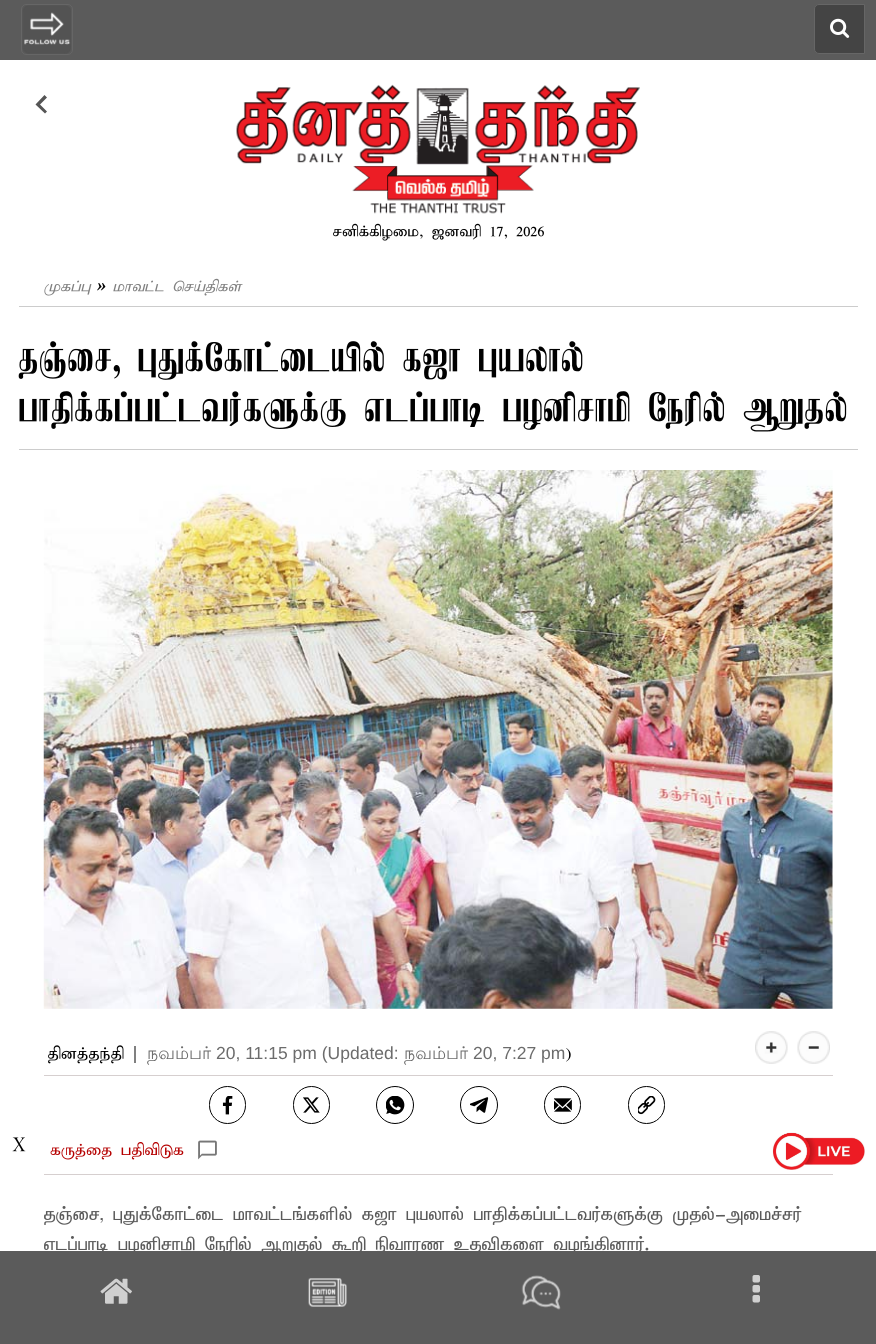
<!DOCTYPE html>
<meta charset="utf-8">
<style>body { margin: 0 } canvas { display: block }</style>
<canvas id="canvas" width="876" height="1344"></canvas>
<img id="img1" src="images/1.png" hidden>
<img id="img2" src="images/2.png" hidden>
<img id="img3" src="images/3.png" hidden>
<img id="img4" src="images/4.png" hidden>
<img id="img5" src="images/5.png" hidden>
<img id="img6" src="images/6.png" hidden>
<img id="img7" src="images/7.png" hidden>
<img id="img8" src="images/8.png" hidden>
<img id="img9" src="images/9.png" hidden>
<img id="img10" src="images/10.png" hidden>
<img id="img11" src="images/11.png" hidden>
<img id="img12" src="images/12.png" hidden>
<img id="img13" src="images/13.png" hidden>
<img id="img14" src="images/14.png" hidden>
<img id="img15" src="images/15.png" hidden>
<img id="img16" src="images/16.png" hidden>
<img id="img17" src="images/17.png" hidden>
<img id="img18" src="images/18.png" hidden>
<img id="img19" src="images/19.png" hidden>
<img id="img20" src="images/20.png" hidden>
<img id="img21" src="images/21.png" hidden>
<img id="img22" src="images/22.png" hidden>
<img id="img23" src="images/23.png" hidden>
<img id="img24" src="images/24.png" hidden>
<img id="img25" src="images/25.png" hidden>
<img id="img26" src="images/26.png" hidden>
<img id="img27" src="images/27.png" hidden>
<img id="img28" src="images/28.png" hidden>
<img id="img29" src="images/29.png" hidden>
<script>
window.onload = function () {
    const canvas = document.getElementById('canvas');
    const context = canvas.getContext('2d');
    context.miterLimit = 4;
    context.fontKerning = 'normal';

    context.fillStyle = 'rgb(255, 255, 255)';
    context.fillRect(0, 0, 876, 1344);
    context.fillStyle = 'rgb(91, 91, 91)';
    context.fillRect(0, 0, 876, 60);
    context.beginPath();
    context.roundRect(21.5, 4.5, 51, 50, 4.5);
    context.strokeStyle = 'rgb(102, 102, 102)';
    context.stroke();
    context.drawImage(document.getElementById('img1'), 22, 5, 49, 49);
    context.fillStyle = 'rgb(68, 68, 68)';
    context.beginPath();
    context.roundRect(814.5, 4.5, 50, 49, [4.5, 0, 0, 4.5]);
    context.fill();
    context.stroke();
    context.drawImage(document.getElementById('img2'), 830, 18, 20, 20);
    context.fillStyle = 'rgb(85, 85, 85)';
    context.beginPath();
    context.moveTo(47, 111.5);
    context.lineTo(45, 113.5);
    context.lineTo(35.5, 104.5);
    context.lineTo(44.5, 95);
    context.lineTo(47, 97.5);
    context.lineTo(40, 104.5);
    context.closePath();
    context.fill();
    context.drawImage(document.getElementById('img3'), 236, 84, 404, 130);
    context.drawImage(document.getElementById('img4'), 333, 223, 211, 18);
    context.drawImage(document.getElementById('img5'), 772, 1132, 93, 38);
    context.drawImage(document.getElementById('img6'), 44, 280, 48, 16);
    context.drawImage(document.getElementById('img7'), 113, 278, 130, 18);
    context.fillStyle = 'rgb(204, 204, 204)';
    context.fillRect(19, 306, 839, 1);
    context.drawImage(document.getElementById('img8'), 18, 341, 565, 39);
    context.drawImage(document.getElementById('img9'), 19, 391, 828, 41);
    context.fillRect(19, 449, 839, 1);
    context.drawImage(document.getElementById('img10'), 43, 470, 790, 539);
    context.drawImage(document.getElementById('img11'), 48, 1045, 76, 19);
    context.fillStyle = 'rgb(128, 128, 128)';
    context.fillRect(134, 1046, 2, 17);
    context.drawImage(document.getElementById('img12'), 566, 1048, 5, 14);
    context.drawImage(document.getElementById('img13'), 755, 1031, 33, 33);
    context.drawImage(document.getElementById('img14'), 797, 1031, 33, 33);
    context.fillStyle = 'rgb(214, 207, 207)';
    context.fillRect(44, 1075, 789, 1);
    context.fillRect(44, 1174, 789, 1);
    context.beginPath();
    context.roundRect(209.5, 1086.5, 36, 37, 18);
    context.strokeStyle = 'rgb(0, 0, 0)';
    context.stroke();
    context.drawImage(document.getElementById('img15'), 222, 1096, 11, 19);
    context.beginPath();
    context.roundRect(293.5, 1086.5, 36, 37, 18);
    context.stroke();
    context.drawImage(document.getElementById('img16'), 303, 1097, 17, 16);
    context.beginPath();
    context.arc(395, 1105, 18.5, 0, 2 * Math.PI);
    context.stroke();
    context.drawImage(document.getElementById('img17'), 386, 1096, 19, 19);
    context.beginPath();
    context.arc(479, 1105, 18.5, 0, 2 * Math.PI);
    context.stroke();
    context.drawImage(document.getElementById('img18'), 470, 1097, 19, 16);
    context.beginPath();
    context.roundRect(544.5, 1086.5, 36, 37, 18);
    context.stroke();
    context.drawImage(document.getElementById('img19'), 554, 1098, 18, 14);
    context.beginPath();
    context.roundRect(628.5, 1086.5, 36, 37, 18);
    context.stroke();
    context.drawImage(document.getElementById('img20'), 638, 1096, 18, 19);
    context.drawImage(document.getElementById('img21'), 50, 1142, 134, 18);
    context.drawImage(document.getElementById('img22'), 198, 1140, 19, 20);
    context.drawImage(document.getElementById('img23'), 44, 1206, 758, 20);
    context.drawImage(document.getElementById('img24'), 44, 1236, 605, 15);
    context.fillStyle = 'rgb(91, 91, 91)';
    context.fillRect(0, 1251, 876, 93);
    context.drawImage(document.getElementById('img25'), 100, 1278, 32, 26);
    context.drawImage(document.getElementById('img26'), 308, 1278, 39, 29);
    context.drawImage(document.getElementById('img27'), 521, 1275, 40, 35);
    context.drawImage(document.getElementById('img28'), 752, 1275, 8, 28);
    context.drawImage(document.getElementById('img29'), 12, 1137, 14, 15);
    context.font = 'italic bold 19px Liberation Serif';
    context.fillStyle = 'rgb(0, 0, 0)';
    context.fillText('»', 97, 291);
    context.font = '17.5px Lohit Tamil';
    context.fillStyle = 'rgb(108, 108, 108)';
    context.fillText('நவம்பர்', 147, 1059);
    context.font = '17.5px Liberation Sans';
    context.fillText('20, 11:15 pm (Updated:', 216, 1059);
    context.font = '17.5px Lohit Tamil';
    context.fillText('நவம்பர்', 404, 1059);
    context.font = '17.5px Liberation Sans';
    context.fillText('20, 7:27 pm', 473, 1059);
};
</script>
